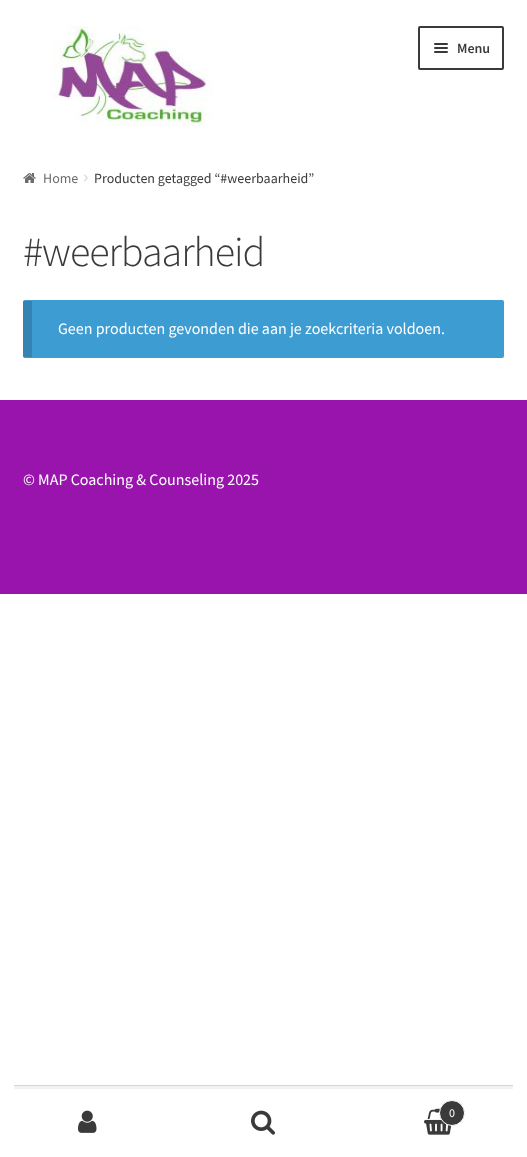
<!DOCTYPE html>
<meta charset="utf-8">
<style>body { margin: 0 } canvas { display: block }</style>
<canvas id="canvas" width="527" height="1157"></canvas>
<img id="img1" src="images/1.png" hidden>
<img id="img2" src="images/2.png" hidden>
<img id="img3" src="images/3.png" hidden>
<img id="img4" src="images/4.png" hidden>
<img id="img5" src="images/5.png" hidden>
<img id="img6" src="images/6.png" hidden>
<script>
window.onload = function () {
    const canvas = document.getElementById('canvas');
    const context = canvas.getContext('2d');
    context.miterLimit = 4;
    context.fontKerning = 'normal';

    context.fillStyle = 'rgb(255, 255, 255)';
    context.fillRect(0, 0, 527, 1157);
    context.drawImage(document.getElementById('img1'), 52, 26, 161, 100);
    context.beginPath();
    context.roundRect(419, 27, 84, 42, 1);
    context.strokeStyle = 'rgb(58, 58, 58)';
    context.lineWidth = 2;
    context.stroke();
    context.fillStyle = 'rgb(58, 58, 58)';
    context.beginPath();
    context.roundRect(434, 43, 14, 2, 1);
    context.fill();
    context.beginPath();
    context.roundRect(434, 47, 14, 2, 1);
    context.fill();
    context.beginPath();
    context.roundRect(434, 51, 14, 2, 1);
    context.fill();
    context.drawImage(document.getElementById('img2'), 23, 173, 13, 10);
    context.drawImage(document.getElementById('img3'), 84, 174, 4, 8);
    context.fillStyle = 'rgb(61, 156, 210)';
    context.beginPath();
    context.roundRect(23, 300, 481, 58, 2);
    context.fill();
    context.fillStyle = 'rgba(0, 0, 0, 0.15)';
    context.fillRect(23, 301, 9, 56);
    context.fillStyle = 'rgb(153, 20, 173)';
    context.fillRect(0, 400, 527, 194);
    context.fillStyle = 'rgb(242, 242, 242)';
    context.fillRect(14, 1086, 499, 3);
    context.fillStyle = 'rgb(212, 212, 212)';
    context.fillRect(14, 1085, 499, 1);
    context.drawImage(document.getElementById('img4'), 251, 1110, 24, 25);
    context.drawImage(document.getElementById('img5'), 78, 1110, 19, 23);
    context.drawImage(document.getElementById('img6'), 424, 1108, 28, 27);
    context.fillStyle = 'rgb(58, 58, 58)';
    context.beginPath();
    context.arc(452, 1113, 12.5, 0, 2 * Math.PI);
    context.fill();
    context.strokeStyle = 'rgb(255, 255, 255)';
    context.lineWidth = 1;
    context.stroke();
    context.font = '600 14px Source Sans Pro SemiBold';
    context.fillText('Menu', 457, 53);
    context.font = '14px Source Sans Pro';
    context.fillStyle = 'rgb(108, 108, 108)';
    context.fillText('Home', 43, 183);
    context.fillStyle = 'rgb(58, 58, 58)';
    context.fillText('Producten getagged “#weerbaarheid”', 94, 183);
    context.letterSpacing = '-1px';
    context.font = '300 42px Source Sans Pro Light';
    context.fillText('#weerbaarheid', 23, 266);
    context.letterSpacing = '0px';
    context.font = '16px Source Sans Pro';
    context.fillStyle = 'rgb(255, 255, 255)';
    context.fillText('Geen producten gevonden die aan je zoekcriteria voldoen.', 58, 334);
    context.fillText('© MAP Coaching & Counseling 2025', 23, 485);
    context.font = '12px Source Sans Pro';
    context.fillText('0', 449, 1117);
};
</script>
